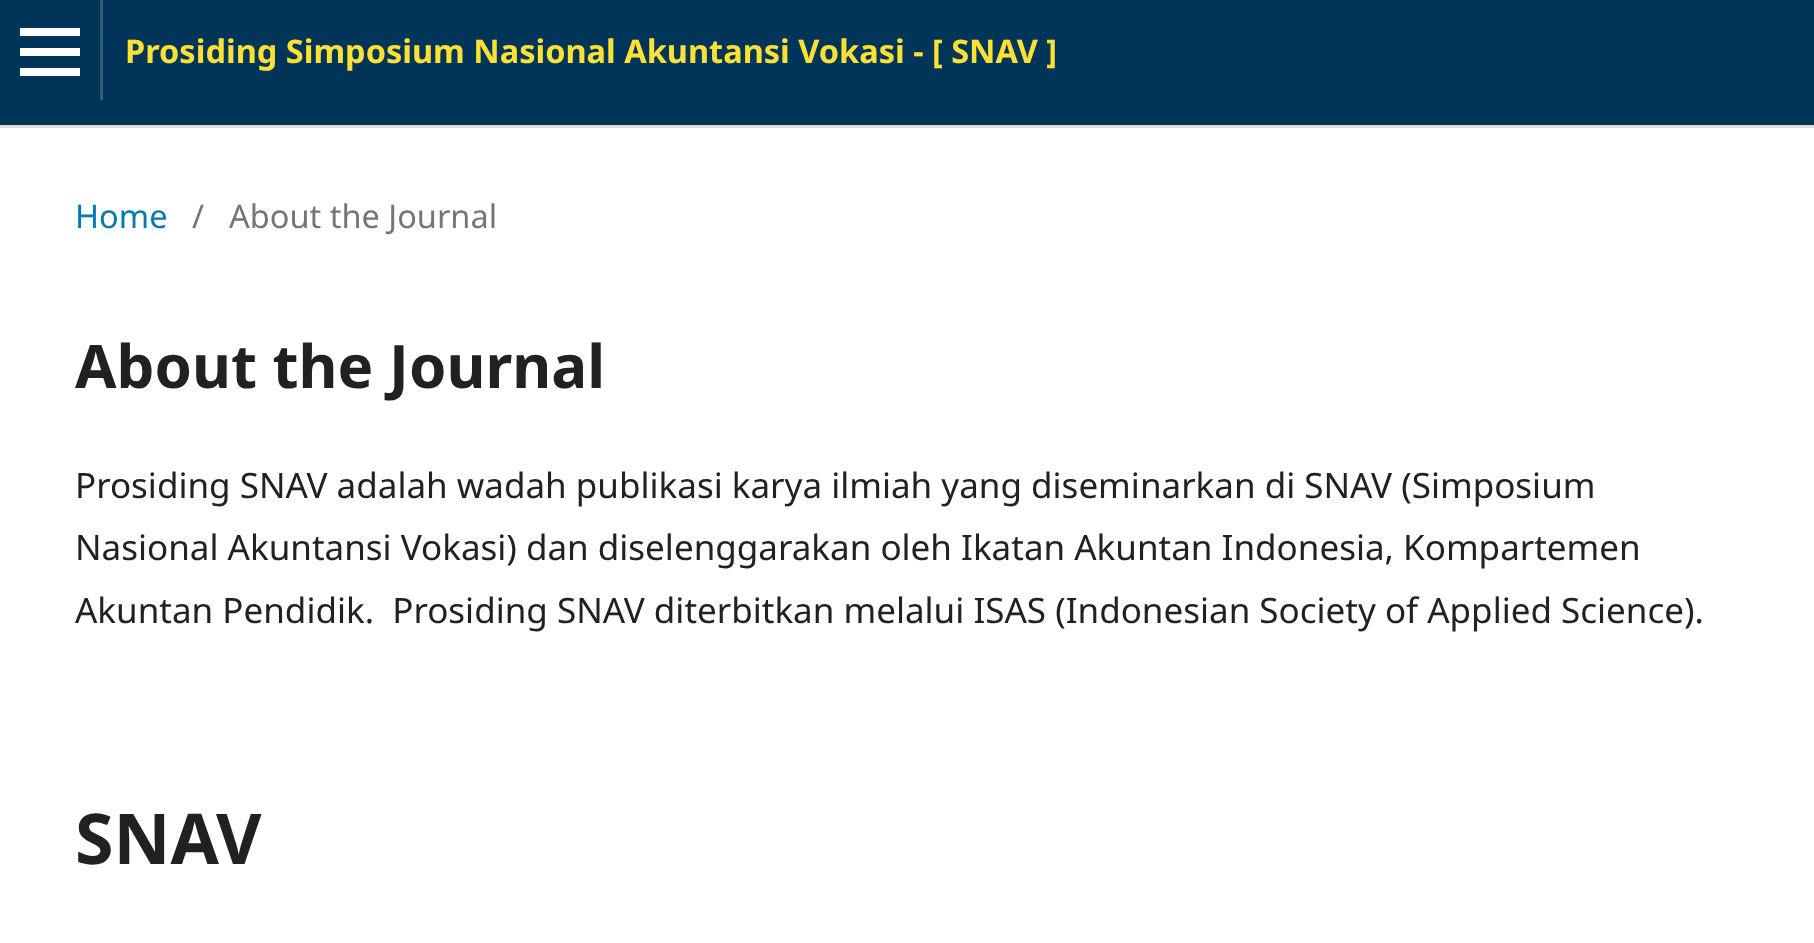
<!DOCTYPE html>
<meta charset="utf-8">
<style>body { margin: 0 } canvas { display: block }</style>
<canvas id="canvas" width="1814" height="943"></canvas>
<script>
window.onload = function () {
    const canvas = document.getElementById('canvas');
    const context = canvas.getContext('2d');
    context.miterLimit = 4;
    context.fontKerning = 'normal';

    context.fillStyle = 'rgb(255, 255, 255)';
    context.fillRect(0, 0, 1814, 943);
    context.fillStyle = 'rgb(0, 53, 90)';
    context.fillRect(0, 0, 1814, 125);
    context.fillStyle = 'rgb(221, 221, 221)';
    context.fillRect(0, 125, 1814, 3);
    context.fillStyle = 'rgb(51, 93, 123)';
    context.fillRect(100, 0, 3, 100);
    context.fillStyle = 'rgb(255, 255, 255)';
    context.fillRect(20, 68, 60, 8);
    context.fillRect(20, 28, 60, 8);
    context.fillRect(20, 48, 60, 8);
    context.font = 'bold 32.5px Noto Sans';
    context.fillStyle = 'rgb(255, 225, 51)';
    context.fillText('Prosiding Simposium Nasional Akuntansi Vokasi - [ SNAV ]', 125, 63);
    context.font = '32.5px Noto Sans';
    context.fillStyle = 'rgb(0, 122, 178)';
    context.fillText('Home', 75, 228);
    context.fillStyle = 'rgb(117, 117, 117)';
    context.fillText('/', 192, 228);
    context.fillText('About the Journal', 229, 228);
    context.font = 'bold 60px Noto Sans';
    context.fillStyle = 'rgb(33, 33, 33)';
    context.fillText('About the Journal', 75, 388);
    context.font = '35px Noto Sans';
    context.fillText('Prosiding SNAV adalah wadah publikasi karya ilmiah yang diseminarkan di SNAV (Simposium', 75, 498);
    context.fillText('Nasional Akuntansi Vokasi) dan diselenggarakan oleh Ikatan Akuntan Indonesia, Kompartemen', 75, 560);
    context.fillText('Akuntan Pendidik.  Prosiding SNAV diterbitkan melalui ISAS (Indonesian Society of Applied Science).', 75, 623);
    context.font = 'bold 70px Noto Sans';
    context.fillText('SNAV', 75, 864);
};
</script>
